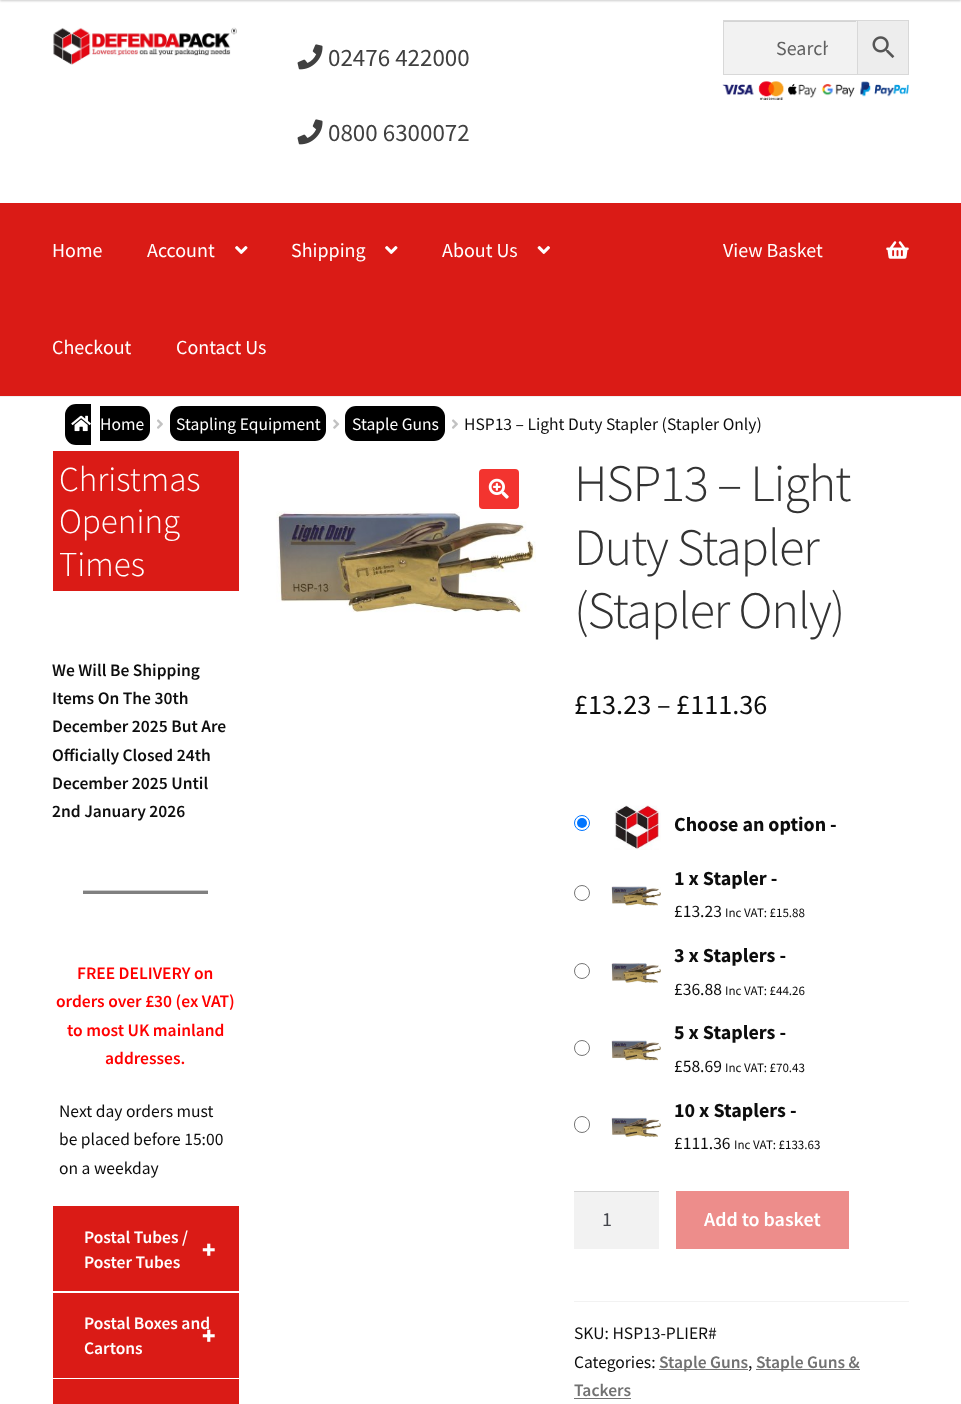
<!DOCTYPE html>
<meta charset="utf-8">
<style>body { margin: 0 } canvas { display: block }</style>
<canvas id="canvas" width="961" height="1404"></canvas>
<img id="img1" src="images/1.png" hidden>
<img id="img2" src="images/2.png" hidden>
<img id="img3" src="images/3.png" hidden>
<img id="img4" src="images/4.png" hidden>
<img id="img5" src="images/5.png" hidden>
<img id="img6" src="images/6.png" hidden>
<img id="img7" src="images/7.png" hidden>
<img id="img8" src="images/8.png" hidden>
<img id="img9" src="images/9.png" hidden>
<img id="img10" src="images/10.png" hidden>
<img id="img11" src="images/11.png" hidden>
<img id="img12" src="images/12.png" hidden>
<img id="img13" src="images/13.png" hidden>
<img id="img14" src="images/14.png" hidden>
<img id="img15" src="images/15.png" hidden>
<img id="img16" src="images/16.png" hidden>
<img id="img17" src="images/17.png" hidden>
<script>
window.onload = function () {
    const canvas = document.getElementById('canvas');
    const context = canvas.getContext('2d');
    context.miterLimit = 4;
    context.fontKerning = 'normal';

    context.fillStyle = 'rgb(255, 255, 255)';
    context.fillRect(0, 0, 961, 1404);
    context.fillStyle = 'rgba(0, 0, 0, 0.2)';
    context.filter = 'blur(1px)';
    context.beginPath();
    context.rect(0, -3, 961, 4);
    context.fill();
    context.filter = 'none';
    context.fillStyle = 'rgb(240, 240, 240)';
    context.fillRect(0, 396, 961, 1);
    context.drawImage(document.getElementById('img1'), 53, 27, 184, 38);
    context.drawImage(document.getElementById('img2'), 297, 44, 26, 26);
    context.drawImage(document.getElementById('img2'), 297, 119, 26, 26);
    context.fillStyle = 'rgb(237, 237, 237)';
    context.fillRect(858, 21, 50, 53);
    context.strokeStyle = 'rgb(216, 216, 216)';
    context.strokeRect(856.5, 20.5, 52, 54);
    context.fillStyle = 'rgb(242, 242, 242)';
    context.fillRect(724, 21, 133, 53);
    context.fillStyle = 'rgb(212, 212, 212)';
    context.fillRect(724, 21, 132, 1);
    context.strokeRect(723.5, 20.5, 134, 54);
    context.drawImage(document.getElementById('img3'), 872, 36, 23, 22);
    context.drawImage(document.getElementById('img4'), 722, 81, 187, 19);
    context.fillStyle = 'rgb(218, 27, 22)';
    context.fillRect(0, 203, 961, 193);
    context.drawImage(document.getElementById('img5'), 235, 246, 13, 8);
    context.drawImage(document.getElementById('img5'), 385, 246, 13, 8);
    context.drawImage(document.getElementById('img6'), 537, 246, 13, 8);
    context.drawImage(document.getElementById('img7'), 886, 241, 23, 18);
    context.fillStyle = 'rgb(0, 0, 0)';
    context.beginPath();
    context.roundRect(65, 404, 26, 41, [11, 0, 0, 11]);
    context.fill();
    context.beginPath();
    context.roundRect(100, 406, 50, 35, [0, 11, 11, 0]);
    context.fill();
    context.drawImage(document.getElementById('img8'), 71, 415, 20, 17);
    context.drawImage(document.getElementById('img9'), 157, 419, 6, 10);
    context.beginPath();
    context.roundRect(170, 406, 156, 35, 11);
    context.fill();
    context.drawImage(document.getElementById('img10'), 333, 419, 7, 10);
    context.beginPath();
    context.roundRect(345, 406, 100, 35, 11);
    context.fill();
    context.drawImage(document.getElementById('img9'), 452, 419, 6, 10);
    context.fillStyle = 'rgb(218, 27, 22)';
    context.fillRect(53, 451, 186, 140);
    context.fillStyle = 'rgb(204, 204, 204)';
    context.fillRect(83, 890, 125, 1);
    context.fillStyle = 'rgb(128, 128, 128)';
    context.fillRect(83, 891, 125, 3);
    context.fillStyle = 'rgb(218, 27, 22)';
    context.fillRect(53, 1206, 186, 85);
    context.fillRect(53, 1293, 186, 85);
    context.fillRect(53, 1379, 186, 25);
    context.fillStyle = 'rgb(243, 52, 47)';
    context.beginPath();
    context.roundRect(479, 469, 40, 40, 4);
    context.fill();
    context.drawImage(document.getElementById('img11'), 488, 478, 21, 21);
    context.drawImage(document.getElementById('img12'), 276, 511, 260, 102);
    context.beginPath();
    context.arc(582, 823, 7.5, 0, 2 * Math.PI);
    context.strokeStyle = 'rgb(0, 117, 255)';
    context.stroke();
    context.fillStyle = 'rgb(0, 117, 255)';
    context.beginPath();
    context.arc(582, 823, 5, 0, 2 * Math.PI);
    context.fill();
    context.drawImage(document.getElementById('img13'), 614, 805, 47, 45);
    context.beginPath();
    context.arc(582, 893, 7.5, 0, 2 * Math.PI);
    context.strokeStyle = 'rgb(118, 118, 118)';
    context.stroke();
    context.drawImage(document.getElementById('img14'), 611, 886, 50, 20);
    context.beginPath();
    context.arc(582, 971, 7.5, 0, 2 * Math.PI);
    context.stroke();
    context.drawImage(document.getElementById('img15'), 611, 963, 50, 20);
    context.beginPath();
    context.arc(582, 1048, 7.5, 0, 2 * Math.PI);
    context.stroke();
    context.drawImage(document.getElementById('img16'), 611, 1040, 50, 21);
    context.beginPath();
    context.roundRect(574.5, 1116.5, 15, 16, 7.5);
    context.stroke();
    context.drawImage(document.getElementById('img17'), 611, 1117, 50, 20);
    context.fillStyle = 'rgb(242, 242, 242)';
    context.fillRect(574, 1192, 85, 57);
    context.fillStyle = 'rgb(212, 212, 212)';
    context.fillRect(574, 1191, 85, 1);
    context.fillStyle = 'rgb(237, 141, 139)';
    context.fillRect(676, 1191, 173, 58);
    context.fillStyle = 'rgb(242, 242, 242)';
    context.fillRect(574, 1301, 335, 1);
    context.fillStyle = 'rgb(114, 114, 114)';
    context.fillRect(659, 1369, 89, 1);
    context.fillRect(756, 1369, 104, 1);
    context.fillRect(574, 1398, 57, 1);
    context.font = '25px Source Sans Pro';
    context.fillStyle = 'rgb(64, 64, 64)';
    context.fillText('02476 422000', 328, 66);
    context.fillText('0800 6300072', 328, 141);
    context.save();
    context.beginPath();
    context.rect(776, 35, 52, 25);
    context.clip();
    context.font = '20px Source Sans Pro';
    context.fillStyle = 'rgb(97, 97, 97)';
    context.fillText('Search', 776, 55);
    context.restore();
    context.font = '20px Source Sans Pro';
    context.fillStyle = 'rgb(255, 255, 255)';
    context.fillText('Home', 52, 257);
    context.fillText('Account', 147, 257);
    context.fillText('Shipping', 291, 257);
    context.fillText('About Us', 442, 257);
    context.fillText('Checkout', 52, 354);
    context.fillText('Contact Us', 176, 354);
    context.fillText('View Basket', 723, 257);
    context.font = '17.5px Source Sans Pro';
    context.fillText('Home', 100, 430);
    context.fillText('Stapling Equipment', 176, 430);
    context.fillText('Staple Guns', 352, 430);
    context.fillStyle = 'rgb(13, 13, 13)';
    context.fillText('HSP13 – Light Duty Stapler (Stapler Only)', 464, 430);
    context.font = '300 35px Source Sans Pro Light';
    context.fillStyle = 'rgb(255, 255, 255)';
    context.fillText('Christmas', 59, 491);
    context.fillText('Opening', 59, 533);
    context.fillText('Times', 59, 576);
    context.font = '600 17.5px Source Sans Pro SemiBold';
    context.fillStyle = 'rgb(13, 13, 13)';
    context.fillText('We Will Be Shipping', 52, 676);
    context.fillText('Items On The 30th', 52, 704);
    context.fillText('December 2025 But Are', 52, 732);
    context.fillText('Officially Closed 24th', 52, 761);
    context.fillText('December 2025 Until', 52, 789);
    context.fillText('2nd January 2026', 52, 817);
    context.fillStyle = 'rgb(255, 0, 0)';
    context.fillText('FREE DELIVERY on', 77, 979);
    context.fillText('orders over £30 (ex VAT)', 56, 1007);
    context.fillText('to most UK mainland', 67, 1036);
    context.fillText('addresses.', 105, 1064);
    context.font = '17.5px Source Sans Pro';
    context.fillStyle = 'rgb(13, 13, 13)';
    context.fillText('Next day orders must', 59, 1117);
    context.fillText('be placed before 15:00', 59, 1145);
    context.fillText('on a weekday', 59, 1174);
    context.font = '600 17.5px Source Sans Pro SemiBold';
    context.fillStyle = 'rgb(255, 255, 255)';
    context.fillText('Postal Tubes /', 84, 1243);
    context.font = '900 25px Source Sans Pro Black';
    context.fillText('+', 202, 1258);
    context.font = '600 17.5px Source Sans Pro SemiBold';
    context.fillText('Poster Tubes', 84, 1268);
    context.fillText('Postal Boxes and', 84, 1329);
    context.font = '900 25px Source Sans Pro Black';
    context.fillText('+', 202, 1344);
    context.font = '600 17.5px Source Sans Pro SemiBold';
    context.fillText('Cartons', 84, 1354);
    context.letterSpacing = '-1.25px';
    context.font = '300 52.5px Source Sans Pro Light';
    context.fillStyle = 'rgb(51, 51, 51)';
    context.fillText('HSP13 – Light', 574, 501);
    context.fillText('Duty Stapler', 574, 565);
    context.fillText('(Stapler Only)', 574, 628);
    context.letterSpacing = '0px';
    context.font = '28.25px Source Sans Pro';
    context.fillStyle = 'rgb(13, 13, 13)';
    context.fillText('£13.23 – £111.36', 574, 714);
    context.font = 'bold 20px Source Sans Pro';
    context.fillText('Choose an option -', 674, 831);
    context.fillText('1 x Stapler -', 674, 885);
    context.font = '17.5px Source Sans Pro';
    context.fillText('£13.23', 674, 917);
    context.font = '13px Source Sans Pro';
    context.fillText('Inc VAT: £15.88', 725, 917);
    context.font = 'bold 20px Source Sans Pro';
    context.fillText('3 x Staplers -', 674, 962);
    context.font = '17.5px Source Sans Pro';
    context.fillText('£36.88', 674, 995);
    context.font = '13px Source Sans Pro';
    context.fillText('Inc VAT: £44.26', 725, 995);
    context.font = 'bold 20px Source Sans Pro';
    context.fillText('5 x Staplers -', 674, 1039);
    context.font = '17.5px Source Sans Pro';
    context.fillText('£58.69', 674, 1072);
    context.font = '13px Source Sans Pro';
    context.fillText('Inc VAT: £70.43', 725, 1072);
    context.font = 'bold 20px Source Sans Pro';
    context.fillText('10 x Staplers -', 674, 1117);
    context.font = '17.5px Source Sans Pro';
    context.fillText('£111.36', 674, 1149);
    context.font = '13px Source Sans Pro';
    context.fillText('Inc VAT: £133.63', 734, 1149);
    context.font = '20px Source Sans Pro';
    context.fillStyle = 'rgb(67, 69, 75)';
    context.fillText('1', 602, 1226);
    context.font = '600 20px Source Sans Pro SemiBold';
    context.fillStyle = 'rgb(255, 255, 255)';
    context.fillText('Add to basket', 704, 1226);
    context.font = '17.5px Source Sans Pro';
    context.fillStyle = 'rgb(13, 13, 13)';
    context.fillText('SKU: HSP13-PLIER#', 574, 1339);
    context.fillText('Categories:', 574, 1368);
    context.font = '600 17.5px Source Sans Pro SemiBold';
    context.fillStyle = 'rgb(114, 114, 114)';
    context.fillText('Staple Guns', 659, 1368);
    context.font = '17.5px Source Sans Pro';
    context.fillStyle = 'rgb(13, 13, 13)';
    context.fillText(',', 748, 1368);
    context.font = '600 17.5px Source Sans Pro SemiBold';
    context.fillStyle = 'rgb(114, 114, 114)';
    context.fillText('Staple Guns &', 756, 1368);
    context.fillText('Tackers', 574, 1396);
};
</script>
